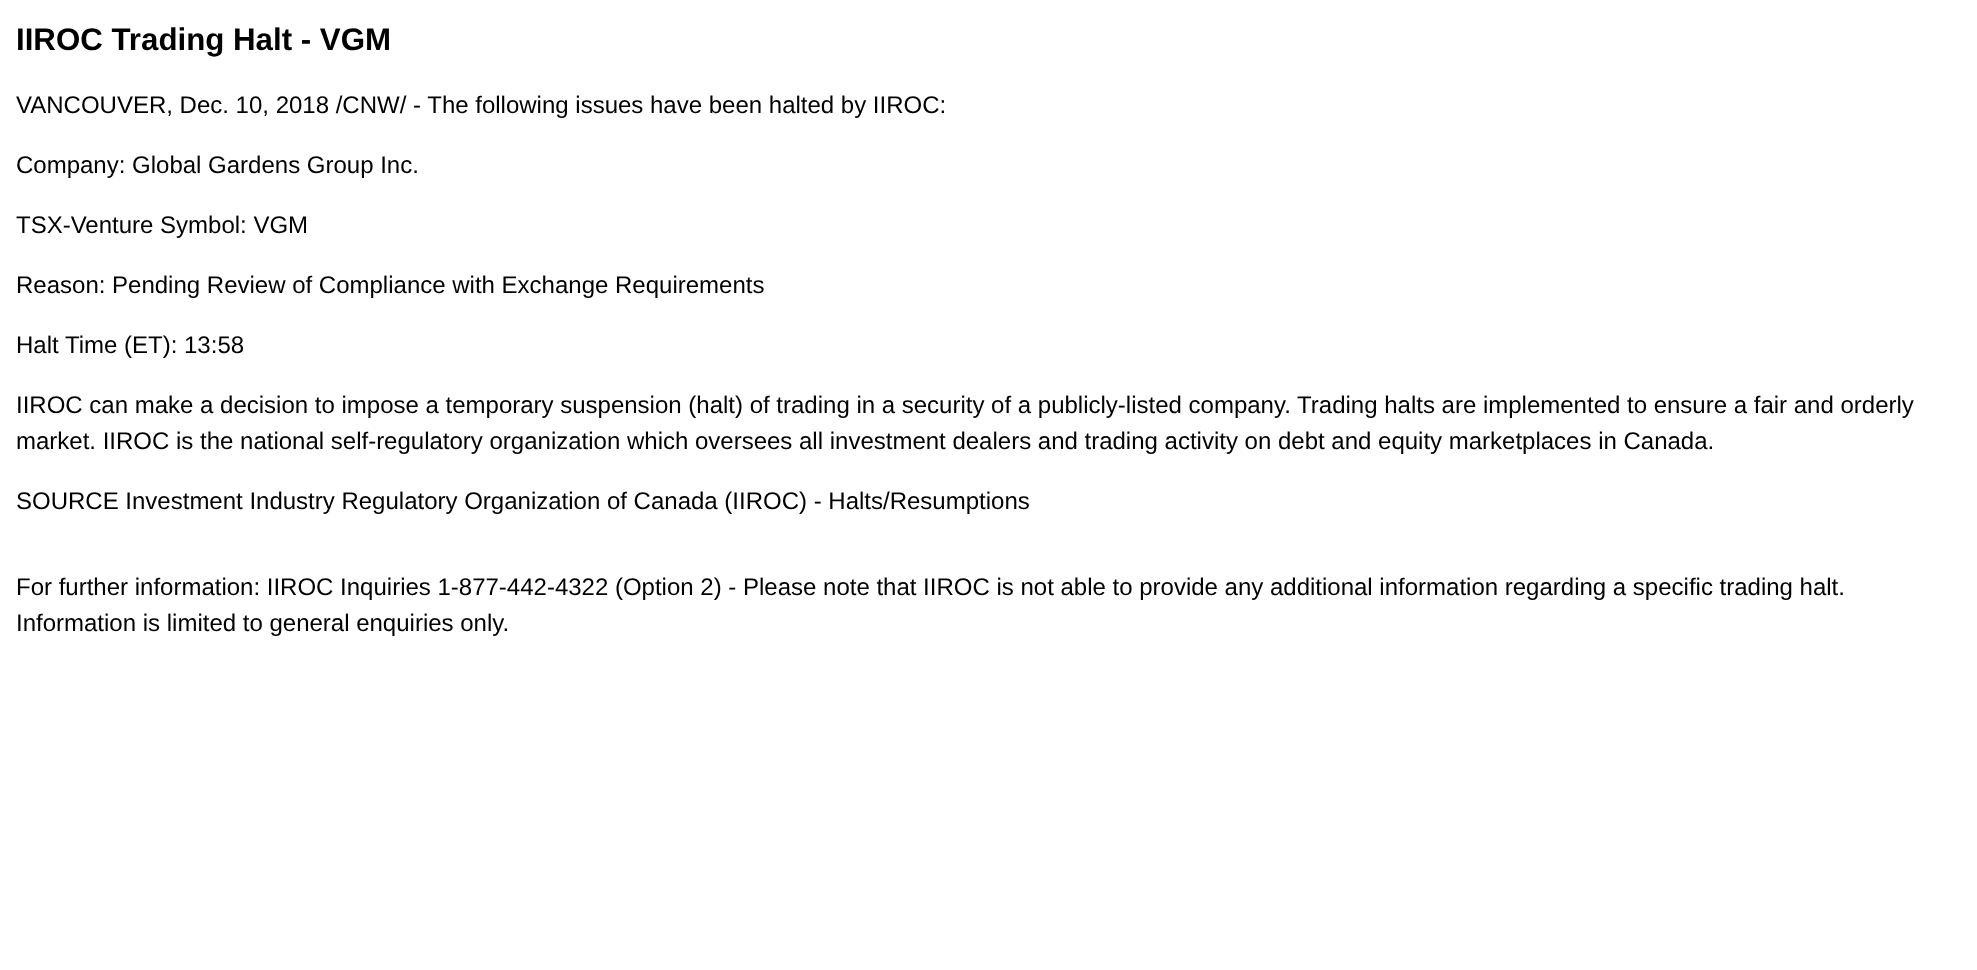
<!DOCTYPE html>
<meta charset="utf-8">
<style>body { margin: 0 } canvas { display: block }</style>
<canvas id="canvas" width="1977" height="970"></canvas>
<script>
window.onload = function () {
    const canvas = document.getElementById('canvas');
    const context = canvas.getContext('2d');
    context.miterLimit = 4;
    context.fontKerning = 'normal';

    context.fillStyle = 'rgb(255, 255, 255)';
    context.fillRect(0, 0, 1977, 970);
    context.font = 'bold 31.25px Liberation Sans';
    context.fillStyle = 'rgb(0, 0, 0)';
    context.fillText('IIROC Trading Halt - VGM', 16, 50);
    context.font = '24px Liberation Sans';
    context.fillText('VANCOUVER, Dec. 10, 2018 /CNW/ - The following issues have been halted by IIROC:', 16, 113);
    context.fillText('Company: Global Gardens Group Inc.', 16, 173);
    context.fillText('TSX-Venture Symbol: VGM', 16, 233);
    context.fillText('Reason: Pending Review of Compliance with Exchange Requirements', 16, 293);
    context.fillText('Halt Time (ET): 13:58', 16, 353);
    context.fillText('IIROC can make a decision to impose a temporary suspension (halt) of trading in a security of a publicly-listed company. Trading halts are implemented to ensure a fair and orderly', 16, 413);
    context.fillText('market. IIROC is the national self-regulatory organization which oversees all investment dealers and trading activity on debt and equity marketplaces in Canada.', 16, 449);
    context.fillText('SOURCE Investment Industry Regulatory Organization of Canada (IIROC) - Halts/Resumptions', 16, 509);
    context.fillText('For further information: IIROC Inquiries 1-877-442-4322 (Option 2) - Please note that IIROC is not able to provide any additional information regarding a specific trading halt.', 16, 595);
    context.fillText('Information is limited to general enquiries only.', 16, 631);
};
</script>
